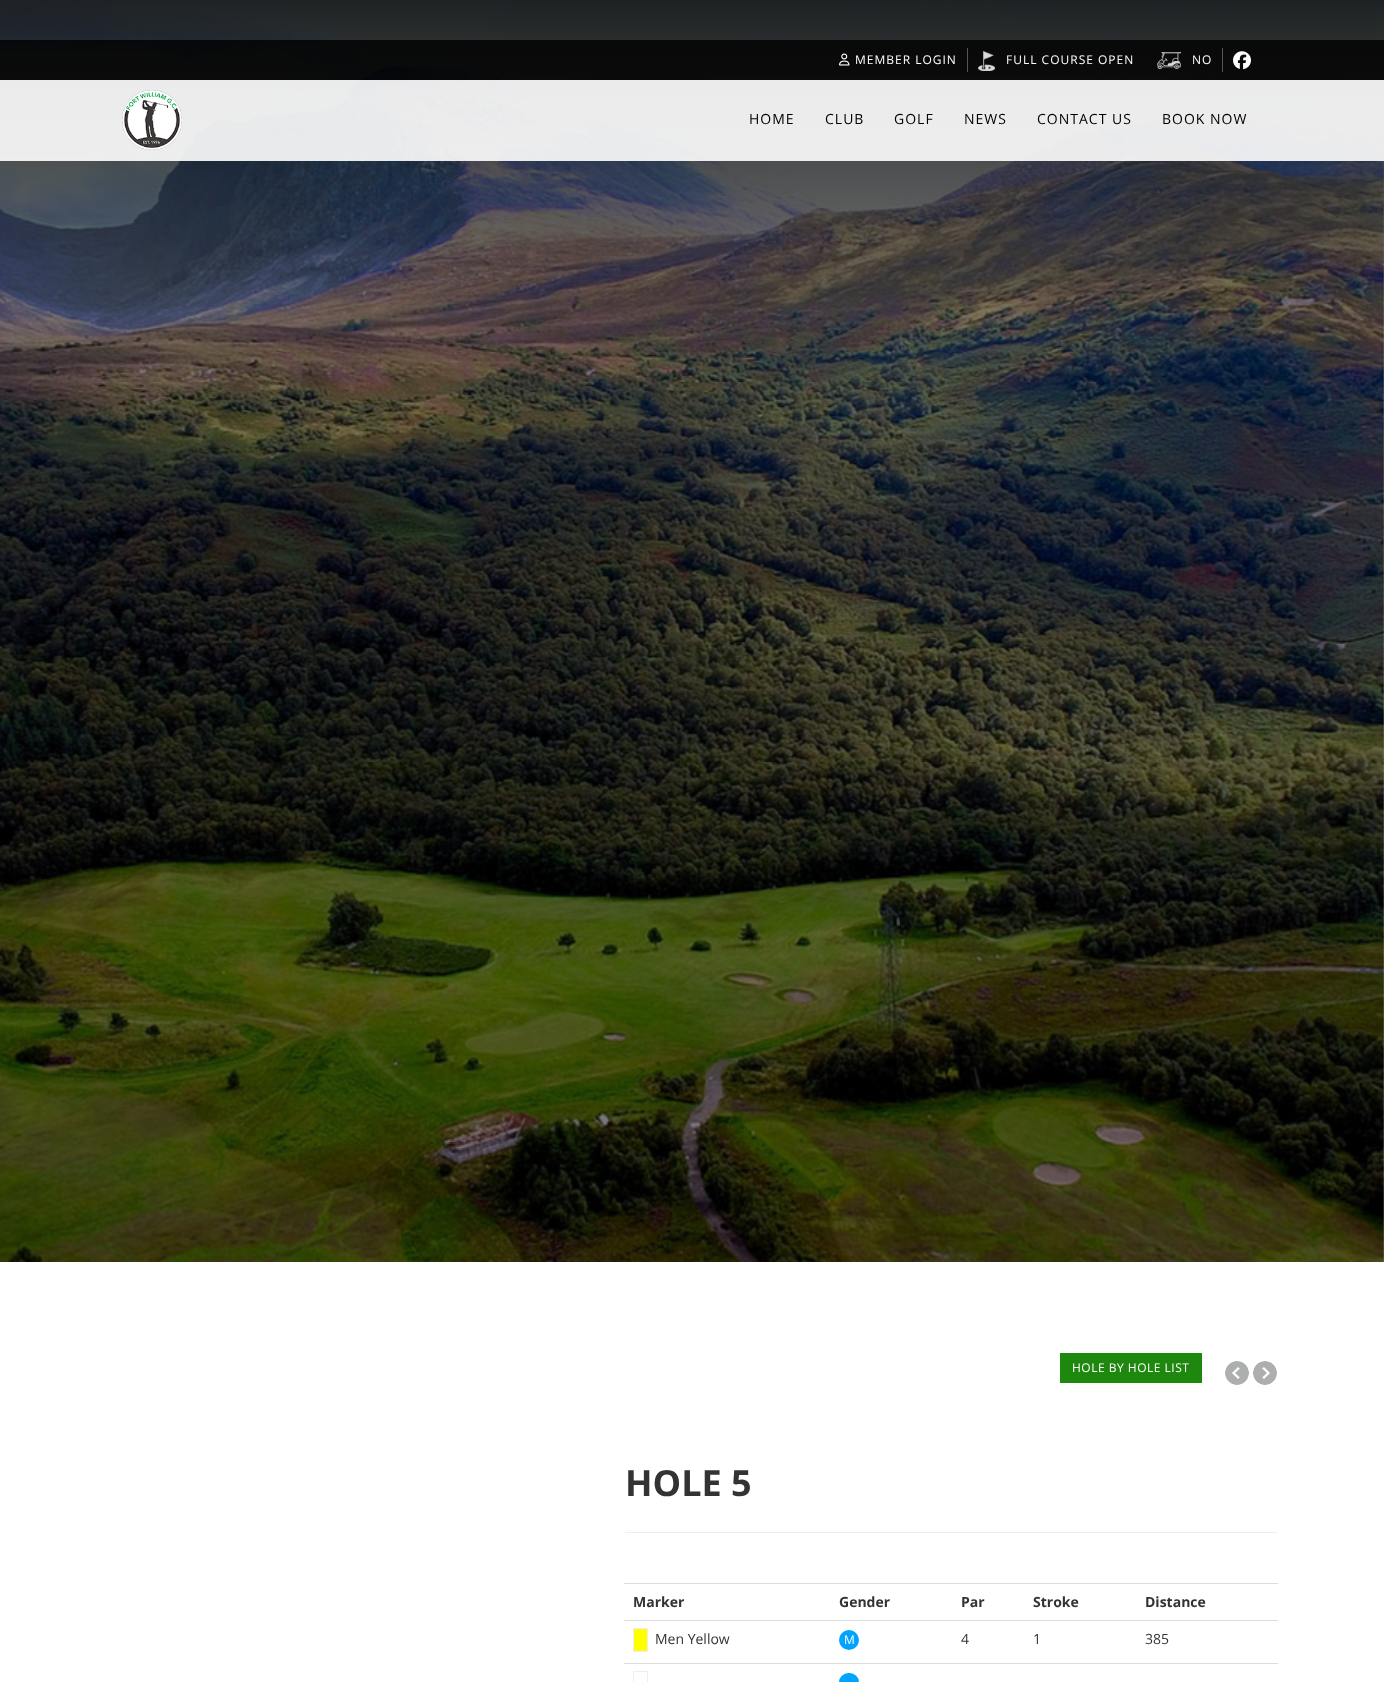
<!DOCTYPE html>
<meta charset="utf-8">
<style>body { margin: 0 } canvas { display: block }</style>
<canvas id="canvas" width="1384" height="1682"></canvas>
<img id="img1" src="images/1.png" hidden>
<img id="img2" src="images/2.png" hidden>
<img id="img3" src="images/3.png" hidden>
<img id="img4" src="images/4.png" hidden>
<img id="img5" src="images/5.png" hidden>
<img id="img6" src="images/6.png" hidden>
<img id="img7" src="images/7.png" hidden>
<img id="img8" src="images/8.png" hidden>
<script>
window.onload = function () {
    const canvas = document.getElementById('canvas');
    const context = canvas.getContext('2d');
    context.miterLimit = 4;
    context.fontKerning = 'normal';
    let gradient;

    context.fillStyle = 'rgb(255, 255, 255)';
    context.fillRect(0, 0, 1384, 1682);
    context.fillStyle = 'rgb(128, 128, 128)';
    context.fillRect(1383, 0, 1, 1262);
    context.drawImage(document.getElementById('img1'), 0, 0, 1384, 1262);
    gradient = context.createLinearGradient(692, 0, 692, 316);
    gradient.addColorStop(0, 'rgba(1, 5, 7, 0.75)');
    gradient.addColorStop(1, 'rgba(1, 5, 7, 0)');
    context.fillStyle = gradient;
    context.fillRect(0, 0, 1384, 307);
    context.fillStyle = 'rgba(255, 255, 255, 0.9)';
    context.fillRect(0, 80, 1384, 81);
    context.fillStyle = 'rgba(0, 0, 0, 0.8)';
    context.fillRect(0, 40, 1384, 40);
    context.drawImage(document.getElementById('img2'), 839, 53, 11, 13);
    context.fillStyle = 'rgb(85, 85, 85)';
    context.fillRect(967, 48, 1, 24);
    context.drawImage(document.getElementById('img3'), 978, 51, 17, 20);
    context.drawImage(document.getElementById('img4'), 1157, 52, 24, 17);
    context.fillRect(1222, 48, 1, 24);
    context.drawImage(document.getElementById('img5'), 1233, 51, 18, 19);
    context.drawImage(document.getElementById('img6'), 122, 90, 60, 60);
    context.fillStyle = 'rgb(30, 135, 13)';
    context.fillRect(1060, 1353, 142, 30);
    context.drawImage(document.getElementById('img7'), 1225, 1361, 24, 24);
    context.drawImage(document.getElementById('img8'), 1253, 1361, 24, 24);
    context.fillStyle = 'rgb(238, 238, 238)';
    context.fillRect(625, 1532, 652, 1);
    context.fillStyle = 'rgb(221, 221, 221)';
    context.fillRect(624, 1583, 654, 1);
    context.fillStyle = 'rgb(255, 255, 0)';
    context.beginPath();
    context.rect(633.5, 1628.5, 14, 23);
    context.fill();
    context.strokeStyle = 'rgb(238, 238, 238)';
    context.stroke();
    context.fillStyle = 'rgb(0, 164, 255)';
    context.beginPath();
    context.arc(849, 1640, 10, 0, 2 * Math.PI);
    context.fill();
    context.fillStyle = 'rgb(221, 221, 221)';
    context.fillRect(624, 1620, 654, 1);
    context.fillRect(624, 1663, 654, 1);
    context.strokeRect(633.5, 1671.5, 14, 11);
    context.fillStyle = 'rgb(0, 164, 255)';
    context.beginPath();
    context.roundRect(839, 1673, 20, 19, 10);
    context.fill();
    context.letterSpacing = '1px';
    context.font = '12px Open Sans';
    context.fillStyle = 'rgb(255, 255, 255)';
    context.fillText('MEMBER LOGIN', 855, 64);
    context.fillText('FULL COURSE OPEN', 1006, 64);
    context.fillText('NO', 1192, 64);
    context.font = '14px Open Sans';
    context.fillStyle = 'rgb(0, 0, 0)';
    context.fillText('HOME', 749, 124);
    context.fillText('CLUB', 825, 124);
    context.fillText('GOLF', 894, 124);
    context.fillText('NEWS', 964, 124);
    context.fillText('CONTACT US', 1037, 124);
    context.fillText('BOOK NOW', 1162, 124);
    context.letterSpacing = '0.5px';
    context.font = '12px Open Sans';
    context.fillStyle = 'rgb(255, 255, 255)';
    context.fillText('HOLE BY HOLE LIST', 1072, 1372);
    context.letterSpacing = '0px';
    context.font = 'bold 36px Open Sans';
    context.fillStyle = 'rgb(51, 51, 51)';
    context.fillText('HOLE 5', 625, 1496);
    context.font = 'bold 14px Open Sans';
    context.fillText('Marker', 633, 1607);
    context.fillText('Gender', 839, 1607);
    context.fillText('Par', 961, 1607);
    context.fillText('Stroke', 1033, 1607);
    context.fillText('Distance', 1145, 1607);
    context.font = '14px Open Sans';
    context.fillText('Men Yellow', 655, 1644);
    context.font = '12px Open Sans';
    context.fillStyle = 'rgb(255, 255, 255)';
    context.fillText('M', 844, 1644);
    context.font = '14px Open Sans';
    context.fillStyle = 'rgb(51, 51, 51)';
    context.fillText('4', 961, 1644);
    context.fillText('1', 1033, 1644);
    context.fillText('385', 1145, 1644);
};
</script>
